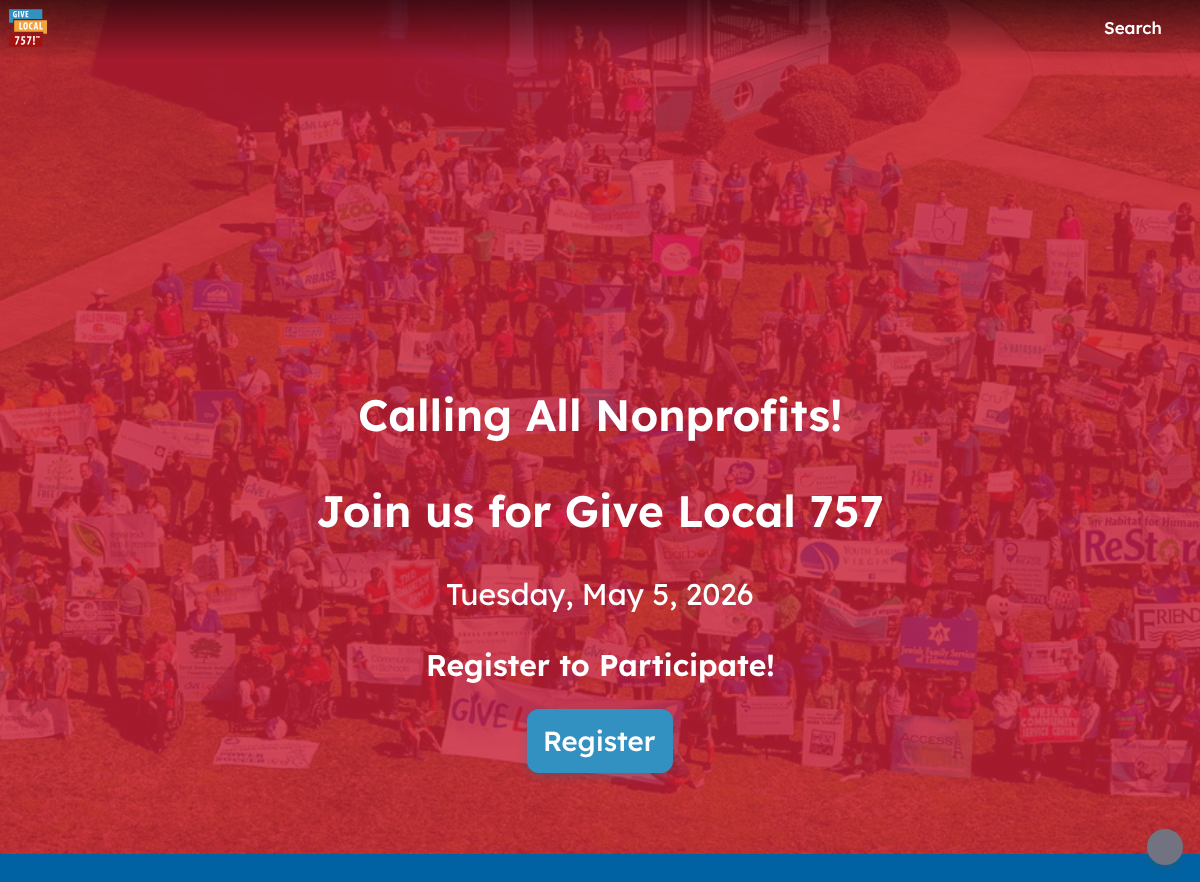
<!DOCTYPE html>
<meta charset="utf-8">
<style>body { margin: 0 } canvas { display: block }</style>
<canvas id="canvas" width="1200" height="882"></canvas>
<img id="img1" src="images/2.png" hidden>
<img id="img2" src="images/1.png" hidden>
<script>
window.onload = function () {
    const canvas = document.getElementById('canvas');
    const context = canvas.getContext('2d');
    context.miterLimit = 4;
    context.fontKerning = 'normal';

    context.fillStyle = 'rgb(255, 255, 255)';
    context.fillRect(0, 0, 1200, 882);
    context.drawImage(document.getElementById('img1'), 0, 0, 1200, 854);
    context.drawImage(document.getElementById('img2'), 9, 9, 38, 38);
    context.fillStyle = 'rgba(0, 120, 168, 0.32)';
    context.filter = 'blur(4px)';
    context.beginPath();
    context.roundRect(527, 712, 146, 64, 12);
    context.fill();
    context.filter = 'none';
    context.fillStyle = 'rgb(51, 145, 193)';
    context.beginPath();
    context.roundRect(527, 709, 146, 64, 12);
    context.fill();
    context.fillStyle = 'rgb(0, 98, 163)';
    context.fillRect(0, 854, 1200, 28);
    context.fillStyle = 'rgba(78, 79, 85, 0.32)';
    context.filter = 'blur(4px)';
    context.beginPath();
    context.roundRect(1147, 832, 36, 36, 18);
    context.fill();
    context.filter = 'none';
    context.fillStyle = 'rgb(113, 116, 128)';
    context.beginPath();
    context.arc(1165, 847, 18, 0, 2 * Math.PI);
    context.fill();
    context.font = '500 17px Lexend Deca';
    context.fillStyle = 'rgb(255, 255, 255)';
    context.fillText('Search', 1104, 34);
    context.font = '600 44px Lexend Deca';
    context.fillText('Calling All Nonprofits!', 358, 431);
    context.fillText('Join us for Give Local 757', 316, 527);
    context.font = '30px Lexend Deca';
    context.fillText('Tuesday, May 5, 2026', 446, 605);
    context.font = '600 30px Lexend Deca';
    context.fillText('Register to Participate!', 426, 676);
    context.font = '500 27.5px Lexend Deca';
    context.fillText('Register', 543, 751);
};
</script>
